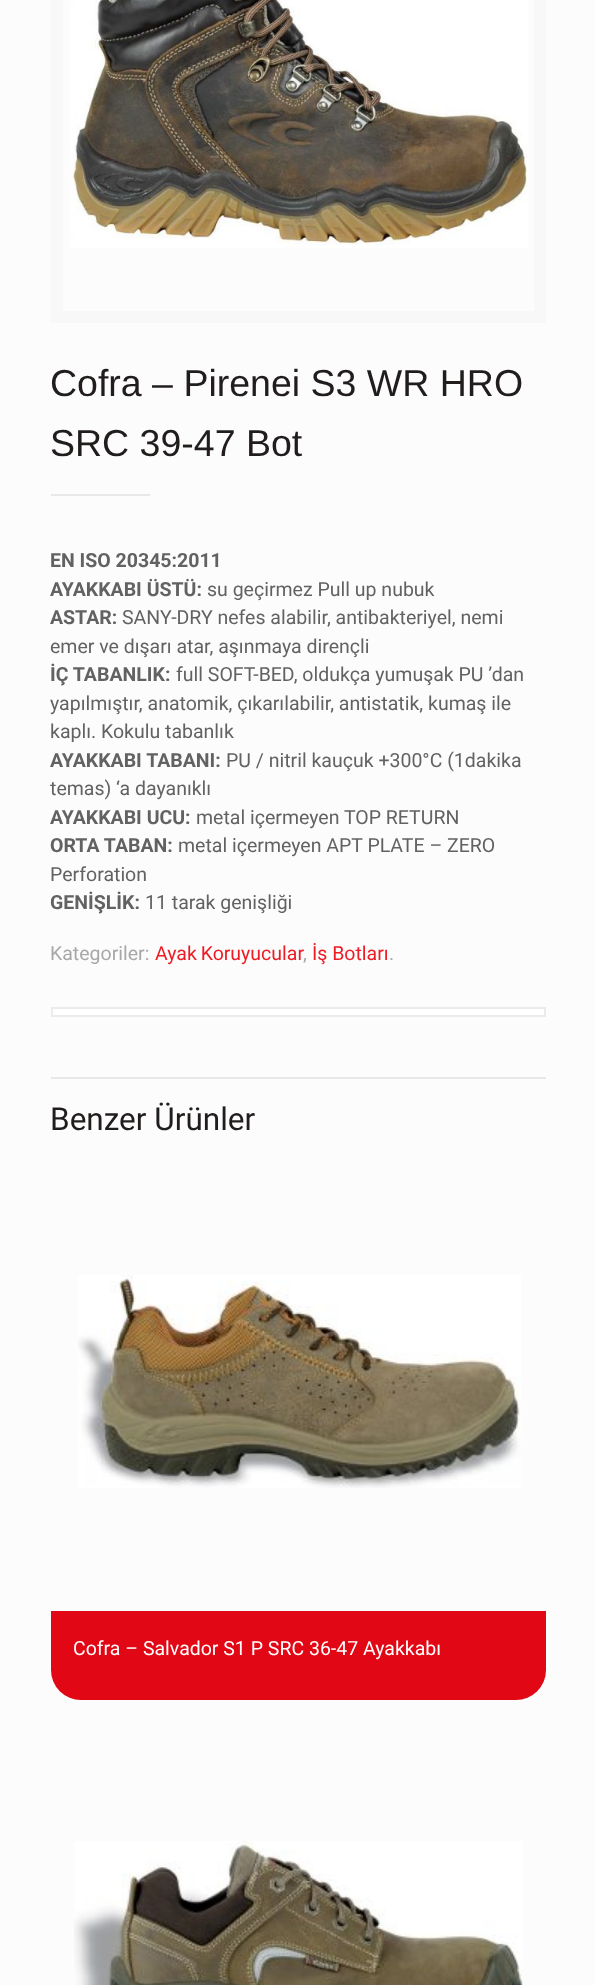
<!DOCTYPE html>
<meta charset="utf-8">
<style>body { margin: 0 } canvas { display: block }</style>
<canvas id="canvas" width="595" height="1985"></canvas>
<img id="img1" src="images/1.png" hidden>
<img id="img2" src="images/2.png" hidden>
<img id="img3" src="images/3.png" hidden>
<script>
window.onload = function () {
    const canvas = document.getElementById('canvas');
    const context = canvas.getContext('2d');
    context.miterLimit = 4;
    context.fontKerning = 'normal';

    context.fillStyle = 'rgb(252, 252, 252)';
    context.fillRect(0, 0, 595, 1985);
    context.strokeStyle = 'rgb(248, 248, 248)';
    context.lineWidth = 12;
    context.strokeRect(57, -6, 483, 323);
    context.drawImage(document.getElementById('img1'), 70, 0, 458, 248);
    context.fillStyle = 'rgb(232, 232, 232)';
    context.fillRect(51, 494, 99, 2);
    context.fillStyle = 'rgb(255, 255, 255)';
    context.beginPath();
    context.rect(52, 1008, 493, 8);
    context.fill();
    context.strokeStyle = 'rgb(235, 235, 235)';
    context.lineWidth = 2;
    context.stroke();
    context.fillStyle = 'rgb(232, 232, 232)';
    context.fillRect(51, 1077, 495, 2);
    context.drawImage(document.getElementById('img2'), 78, 1275, 443, 213);
    context.fillStyle = 'rgb(226, 7, 20)';
    context.beginPath();
    context.roundRect(51, 1611, 495, 89, [0, 0, 30, 30]);
    context.fill();
    context.drawImage(document.getElementById('img3'), 74, 1841, 449, 144);
    context.font = '37.5px Liberation Sans';
    context.fillStyle = 'rgb(32, 29, 28)';
    context.fillText('Cofra – Pirenei S3 WR HRO', 50, 396);
    context.fillText('SRC 39-47 Bot', 50, 456);
    context.font = 'bold 19.5px Roboto';
    context.fillStyle = 'rgb(98, 98, 98)';
    context.fillText('EN ISO 20345:2011', 50, 567);
    context.fillText('AYAKKABI ÜSTÜ:', 50, 596);
    context.font = '19.5px Roboto';
    context.fillText('su geçirmez Pull up nubuk', 207, 596);
    context.font = 'bold 19.5px Roboto';
    context.fillText('ASTAR:', 50, 624);
    context.font = '19.5px Roboto';
    context.fillText('SANY-DRY nefes alabilir, antibakteriyel, nemi', 122, 624);
    context.fillText('emer ve dışarı atar, aşınmaya dirençli', 50, 653);
    context.font = 'bold 19.5px Roboto';
    context.fillText('İÇ TABANLIK:', 50, 681);
    context.font = '19.5px Roboto';
    context.fillText('full SOFT-BED, oldukça yumuşak PU ’dan', 176, 681);
    context.fillText('yapılmıştır, anatomik, çıkarılabilir, antistatik, kumaş ile', 50, 710);
    context.fillText('kaplı. Kokulu tabanlık', 50, 738);
    context.font = 'bold 19.5px Roboto';
    context.fillText('AYAKKABI TABANI:', 50, 767);
    context.font = '19.5px Roboto';
    context.fillText('PU / nitril kauçuk +300°C (1dakika', 226, 767);
    context.fillText('temas) ‘a dayanıklı', 50, 795);
    context.font = 'bold 19.5px Roboto';
    context.fillText('AYAKKABI UCU:', 50, 824);
    context.font = '19.5px Roboto';
    context.fillText('metal içermeyen TOP RETURN', 196, 824);
    context.font = 'bold 19.5px Roboto';
    context.fillText('ORTA TABAN:', 50, 852);
    context.font = '19.5px Roboto';
    context.fillText('metal içermeyen APT PLATE – ZERO', 178, 852);
    context.fillText('Perforation', 50, 881);
    context.font = 'bold 19.5px Roboto';
    context.fillText('GENİŞLİK:', 50, 909);
    context.font = '19.5px Roboto';
    context.fillText('11 tarak genişliği', 145, 909);
    context.fillStyle = 'rgb(168, 168, 168)';
    context.fillText('Kategoriler:', 50, 960);
    context.wordSpacing = '-1px';
    context.fillStyle = 'rgb(237, 28, 36)';
    context.fillText('Ayak Koruyucular', 155, 960);
    context.wordSpacing = '0px';
    context.fillStyle = 'rgb(168, 168, 168)';
    context.fillText(',', 303, 960);
    context.fillStyle = 'rgb(237, 28, 36)';
    context.fillText('İş Botları', 312, 960);
    context.fillStyle = 'rgb(168, 168, 168)';
    context.fillText('.', 389, 960);
    context.font = '31.5px Roboto';
    context.fillStyle = 'rgb(32, 29, 28)';
    context.fillText('Benzer Ürünler', 50, 1130);
    context.font = '19.5px Roboto';
    context.fillStyle = 'rgb(255, 255, 255)';
    context.fillText('Cofra – Salvador S1 P SRC 36-47 Ayakkabı', 73, 1655);
};
</script>
